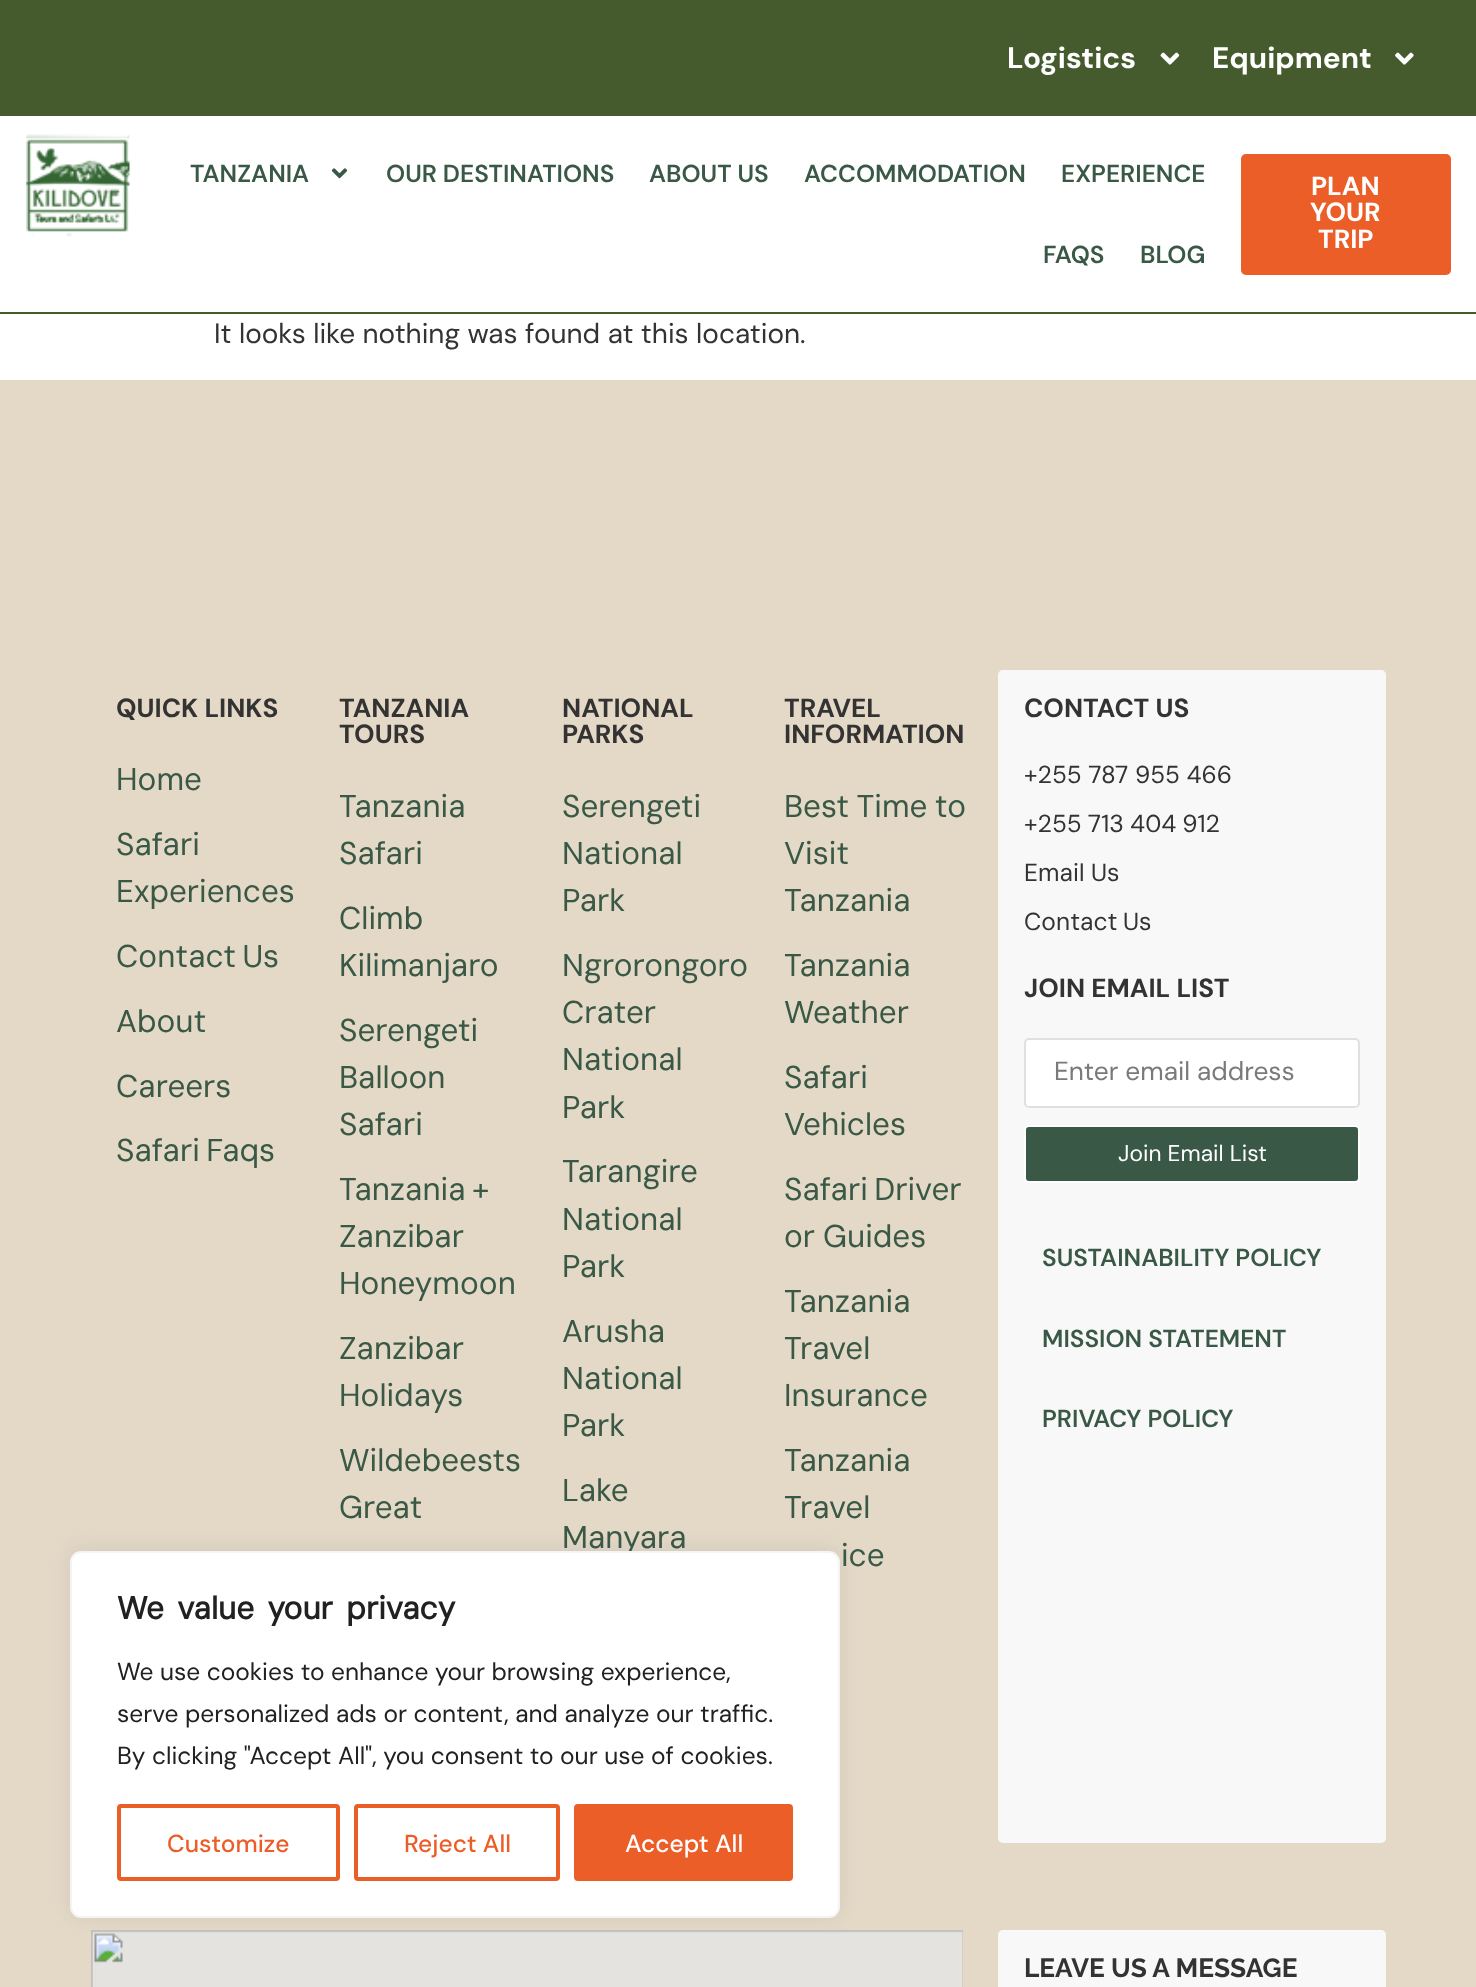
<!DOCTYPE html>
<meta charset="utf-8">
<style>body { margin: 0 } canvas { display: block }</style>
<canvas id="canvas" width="1476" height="1987"></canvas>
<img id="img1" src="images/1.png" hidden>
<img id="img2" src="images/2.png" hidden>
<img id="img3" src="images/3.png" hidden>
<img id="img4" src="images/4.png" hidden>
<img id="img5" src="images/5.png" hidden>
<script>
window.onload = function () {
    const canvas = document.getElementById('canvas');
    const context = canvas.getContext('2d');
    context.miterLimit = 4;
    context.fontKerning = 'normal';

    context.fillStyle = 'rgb(255, 255, 255)';
    context.fillRect(0, 0, 1476, 1987);
    context.fillStyle = 'rgb(70, 91, 45)';
    context.fillRect(0, 0, 1476, 116);
    context.drawImage(document.getElementById('img1'), 1160, 52, 20, 13);
    context.drawImage(document.getElementById('img2'), 1395, 52, 19, 13);
    context.fillRect(0, 312, 1476, 2);
    context.drawImage(document.getElementById('img3'), 26, 134, 104, 103);
    context.drawImage(document.getElementById('img4'), 331, 168, 17, 11);
    context.fillStyle = 'rgb(235, 94, 40)';
    context.beginPath();
    context.roundRect(1241, 154, 210, 121, 5);
    context.fill();
    context.fillStyle = 'rgb(228, 216, 198)';
    context.fillRect(0, 380, 1476, 1607);
    context.fillStyle = 'rgb(248, 248, 248)';
    context.beginPath();
    context.roundRect(998, 670, 388, 1173, 5);
    context.fill();
    context.fillStyle = 'rgb(255, 255, 255)';
    context.beginPath();
    context.roundRect(1025, 1039, 334, 68, 4);
    context.fill();
    context.strokeStyle = 'rgb(224, 224, 224)';
    context.lineWidth = 2;
    context.stroke();
    context.fillStyle = 'rgb(57, 88, 70)';
    context.beginPath();
    context.roundRect(1025, 1126, 334, 56, 4);
    context.fill();
    context.strokeStyle = 'rgb(255, 255, 255)';
    context.stroke();
    context.drawImage(document.getElementById('img5'), 91, 1930, 872, 57);
    context.fillStyle = 'rgb(248, 248, 248)';
    context.beginPath();
    context.roundRect(998, 1930, 388, 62, 5);
    context.fill();
    context.fillStyle = 'rgba(172, 171, 171, 0.3)';
    context.filter = 'blur(9px)';
    context.beginPath();
    context.roundRect(70, 1549, 770, 367, 11);
    context.fill();
    context.filter = 'none';
    context.font = 'bold 29.75px "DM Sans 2"';
    context.fillStyle = 'rgb(255, 255, 255)';
    context.fillText('Logistics', 1007, 68);
    context.fillText('Equipment', 1212, 68);
    context.font = '600 24.5px DM Sans';
    context.fillStyle = 'rgb(57, 88, 70)';
    context.fillText('TANZANIA', 190, 182);
    context.fillText('OUR DESTINATIONS', 386, 182);
    context.fillText('ABOUT US', 649, 182);
    context.fillText('ACCOMMODATION', 804, 182);
    context.fillText('EXPERIENCE', 1061, 182);
    context.fillText('FAQS', 1043, 263);
    context.fillText('BLOG', 1140, 263);
    context.font = 'bold 26.25px DM Sans';
    context.fillStyle = 'rgb(255, 255, 255)';
    context.fillText('PLAN', 1311, 195);
    context.fillText('YOUR', 1310, 221);
    context.fillText('TRIP', 1318, 248);
    context.font = '28px DM Sans';
    context.fillStyle = 'rgb(51, 51, 51)';
    context.fillText('It looks like nothing was found at this location.', 214, 343);
    context.font = 'bold 26.25px DM Sans';
    context.fillText('QUICK LINKS', 116, 717);
    context.font = '31.5px "DM Sans 2"';
    context.fillStyle = 'rgb(57, 88, 70)';
    context.fillText('Home', 116, 790);
    context.fillText('Safari', 116, 855);
    context.fillText('Experiences', 116, 902);
    context.wordSpacing = '-2px';
    context.fillText('Contact Us', 116, 967);
    context.wordSpacing = '0px';
    context.fillText('About', 116, 1032);
    context.fillText('Careers', 116, 1097);
    context.wordSpacing = '-2px';
    context.fillText('Safari Faqs', 116, 1161);
    context.wordSpacing = '0px';
    context.font = 'bold 26.25px DM Sans';
    context.fillStyle = 'rgb(51, 51, 51)';
    context.fillText('TANZANIA', 339, 717);
    context.fillText('TOURS', 339, 743);
    context.font = '31.5px "DM Sans 2"';
    context.fillStyle = 'rgb(57, 88, 70)';
    context.fillText('Tanzania', 339, 817);
    context.fillText('Safari', 339, 864);
    context.fillText('Climb', 339, 929);
    context.fillText('Kilimanjaro', 339, 976);
    context.fillText('Serengeti', 339, 1041);
    context.fillText('Balloon', 339, 1088);
    context.fillText('Safari', 339, 1135);
    context.wordSpacing = '-2px';
    context.fillText('Tanzania +', 339, 1200);
    context.wordSpacing = '0px';
    context.fillText('Zanzibar', 339, 1247);
    context.fillText('Honeymoon', 339, 1294);
    context.fillText('Zanzibar', 339, 1359);
    context.fillText('Holidays', 339, 1406);
    context.fillText('Wildebeests', 339, 1471);
    context.fillText('Great', 339, 1518);
    context.font = 'bold 26.25px DM Sans';
    context.fillStyle = 'rgb(51, 51, 51)';
    context.fillText('NATIONAL', 562, 717);
    context.fillText('PARKS', 562, 743);
    context.font = '31.5px "DM Sans 2"';
    context.fillStyle = 'rgb(57, 88, 70)';
    context.fillText('Serengeti', 562, 817);
    context.fillText('National', 562, 864);
    context.fillText('Park', 562, 911);
    context.fillText('Ngrorongoro', 562, 976);
    context.fillText('Crater', 562, 1023);
    context.fillText('National', 562, 1070);
    context.fillText('Park', 562, 1118);
    context.fillText('Tarangire', 562, 1182);
    context.fillText('National', 562, 1230);
    context.fillText('Park', 562, 1277);
    context.fillText('Arusha', 562, 1342);
    context.fillText('National', 562, 1389);
    context.fillText('Park', 562, 1436);
    context.fillText('Lake', 562, 1501);
    context.fillText('Manyara', 562, 1548);
    context.font = 'bold 26.25px DM Sans';
    context.fillStyle = 'rgb(51, 51, 51)';
    context.fillText('TRAVEL', 784, 717);
    context.fillText('INFORMATION', 784, 743);
    context.wordSpacing = '-1px';
    context.font = '31.5px "DM Sans 2"';
    context.fillStyle = 'rgb(57, 88, 70)';
    context.fillText('Best Time to', 784, 817);
    context.wordSpacing = '0px';
    context.fillText('Visit', 784, 864);
    context.fillText('Tanzania', 784, 911);
    context.fillText('Tanzania', 784, 976);
    context.fillText('Weather', 784, 1023);
    context.fillText('Safari', 784, 1088);
    context.fillText('Vehicles', 784, 1135);
    context.wordSpacing = '-2px';
    context.fillText('Safari Driver', 784, 1200);
    context.wordSpacing = '0px';
    context.fillText('or', 784, 1247);
    context.fillText('Guides', 823, 1247);
    context.fillText('Tanzania', 784, 1312);
    context.fillText('Travel', 784, 1359);
    context.fillText('Insurance', 784, 1406);
    context.fillText('Tanzania', 784, 1471);
    context.fillText('Travel', 784, 1518);
    context.fillText('ice', 841, 1566);
    context.font = 'bold 26.25px DM Sans';
    context.fillStyle = 'rgb(51, 51, 51)';
    context.fillText('CONTACT US', 1024, 717);
    context.font = '24.5px "DM Sans 2"';
    context.fillText('+255 787 955 466', 1024, 783);
    context.wordSpacing = '-0.5px';
    context.fillText('+255 713 404 912', 1024, 832);
    context.wordSpacing = '0px';
    context.fillText('Email Us', 1024, 881);
    context.wordSpacing = '-1px';
    context.fillText('Contact Us', 1024, 930);
    context.wordSpacing = '0px';
    context.font = 'bold 26.25px DM Sans';
    context.fillText('JOIN EMAIL LIST', 1024, 997);
    context.font = '26.25px "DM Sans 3"';
    context.fillStyle = 'rgb(121, 122, 124)';
    context.fillText('Enter email address', 1054, 1080);
    context.font = '22.75px "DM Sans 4"';
    context.fillStyle = 'rgb(255, 255, 255)';
    context.fillText('Join Email List', 1118, 1161);
    context.font = '600 24.5px DM Sans';
    context.fillStyle = 'rgb(57, 88, 70)';
    context.fillText('SUSTAINABILITY POLICY', 1042, 1266);
    context.fillText('MISSION STATEMENT', 1042, 1347);
    context.fillText('PRIVACY POLICY', 1042, 1427);
    context.font = 'bold 26.25px Raleway';
    context.fillStyle = 'rgb(51, 51, 51)';
    context.fillText('LEAVE US A MESSAGE', 1024, 1977);
    context.fillStyle = 'rgb(255, 255, 255)';
    context.beginPath();
    context.roundRect(71, 1552, 768, 365, 10);
    context.fill();
    context.strokeStyle = 'rgb(244, 244, 244)';
    context.stroke();
    context.wordSpacing = '5px';
    context.font = 'bold 31.5px "DM Sans 3"';
    context.fillStyle = 'rgb(33, 33, 33)';
    context.fillText('We value your privacy', 117, 1619);
    context.wordSpacing = '0px';
    context.font = '24.5px "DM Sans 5"';
    context.fillText('We use cookies to enhance your browsing experience,', 117, 1680);
    context.fillText('serve personalized ads or content, and analyze our traffic.', 117, 1722);
    context.fillText('By clicking "Accept All", you consent to our use of cookies.', 117, 1764);
    context.beginPath();
    context.roundRect(119, 1806, 219, 73, 2);
    context.strokeStyle = 'rgb(235, 94, 40)';
    context.lineWidth = 4;
    context.stroke();
    context.font = '500 24.5px DM Sans';
    context.fillStyle = 'rgb(235, 94, 40)';
    context.fillText('Customize', 167, 1852);
    context.beginPath();
    context.roundRect(356, 1806, 202, 73, 2);
    context.stroke();
    context.fillText('Reject All', 404, 1852);
    context.beginPath();
    context.roundRect(576, 1806, 215, 73, 2);
    context.fill();
    context.stroke();
    context.fillStyle = 'rgb(255, 255, 255)';
    context.fillText('Accept All', 625, 1852);
};
</script>
